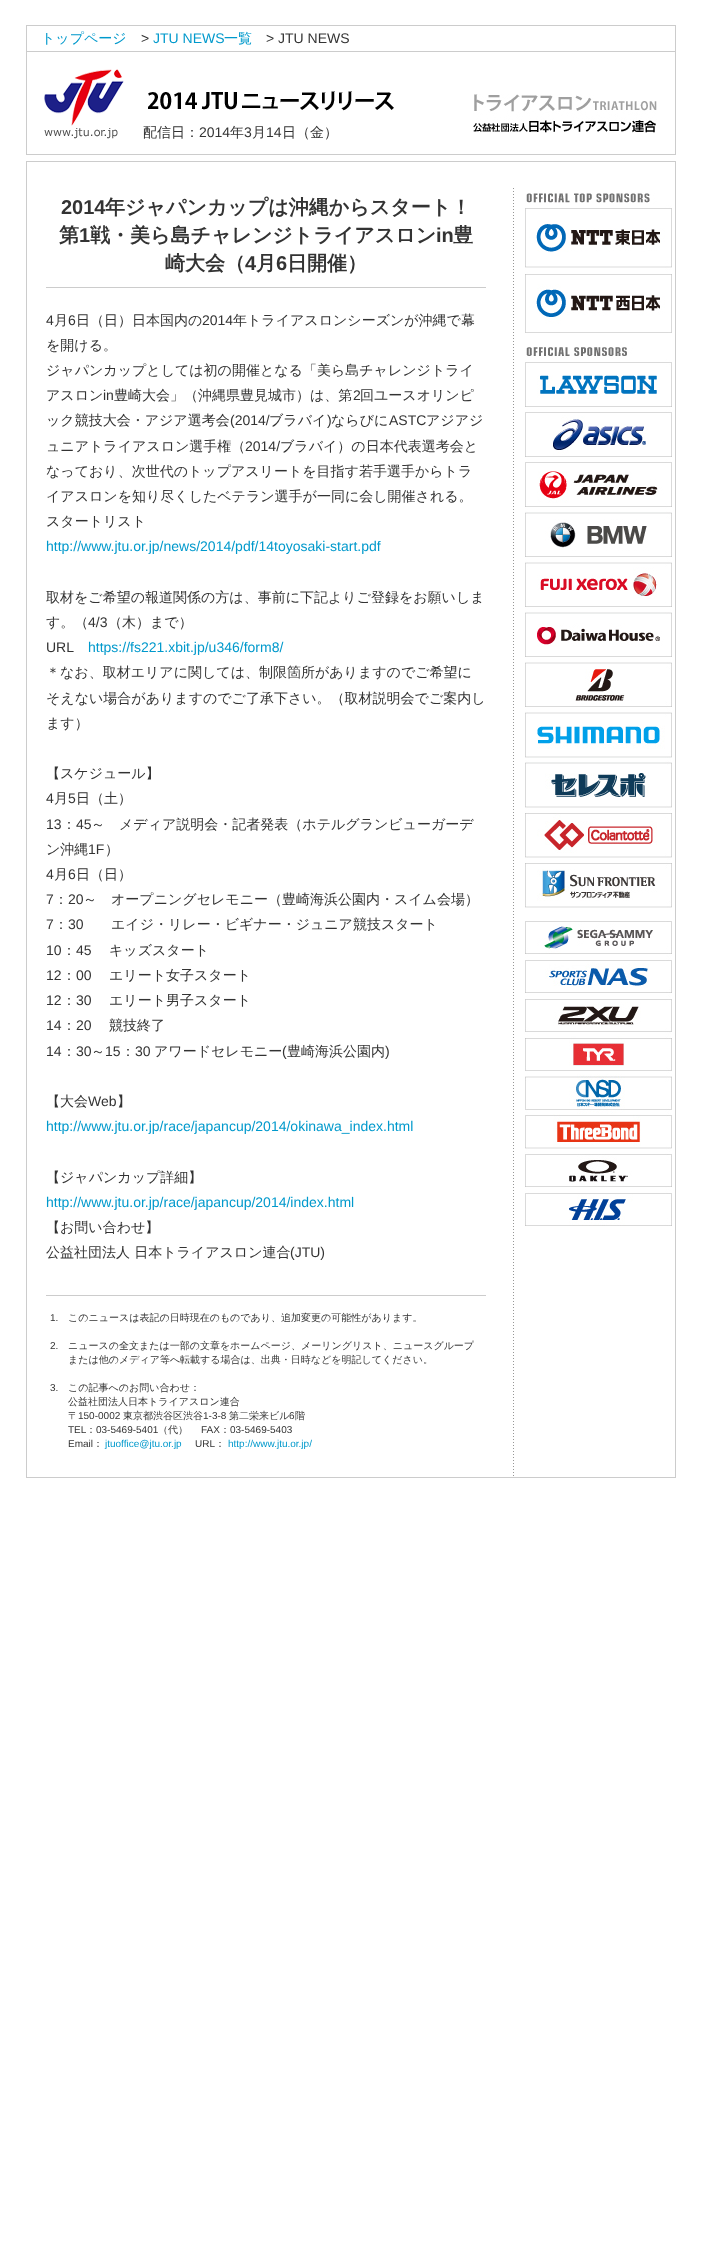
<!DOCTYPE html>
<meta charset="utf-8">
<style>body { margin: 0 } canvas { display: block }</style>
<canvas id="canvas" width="702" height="2250"></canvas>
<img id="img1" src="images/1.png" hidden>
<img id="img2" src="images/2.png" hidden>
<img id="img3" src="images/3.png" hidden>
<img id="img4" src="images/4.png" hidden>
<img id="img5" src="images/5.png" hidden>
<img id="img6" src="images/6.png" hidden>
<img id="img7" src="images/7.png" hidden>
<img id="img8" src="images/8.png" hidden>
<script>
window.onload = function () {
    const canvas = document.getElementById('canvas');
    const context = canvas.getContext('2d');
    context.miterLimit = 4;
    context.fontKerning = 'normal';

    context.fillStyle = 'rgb(255, 255, 255)';
    context.fillRect(0, 0, 702, 2250);
    context.fillStyle = 'rgb(204, 204, 204)';
    context.fillRect(26, 25, 650, 130);
    context.fillStyle = 'rgb(255, 255, 255)';
    context.fillRect(27, 26, 648, 25);
    context.fillRect(27, 52, 648, 102);
    context.drawImage(document.getElementById('img1'), 44, 69, 80, 70);
    context.drawImage(document.getElementById('img2'), 148, 91, 246, 20);
    context.drawImage(document.getElementById('img3'), 473, 94, 184, 39);
    context.strokeStyle = 'rgb(204, 204, 204)';
    context.strokeRect(26.5, 161.5, 649, 1316);
    context.fillStyle = 'rgb(204, 204, 204)';
    context.fillRect(46, 287, 440, 1);
    context.fillRect(46, 1295, 440, 1);
    context.drawImage(document.getElementById('img4'), 513, 188, 1, 1288);
    context.drawImage(document.getElementById('img5'), 525, 193, 147, 140);
    context.drawImage(document.getElementById('img6'), 525, 347, 147, 310);
    context.drawImage(document.getElementById('img7'), 525, 662, 147, 246);
    context.drawImage(document.getElementById('img8'), 525, 921, 147, 305);
    context.font = '500 14px WenQuanYi Zen Hei';
    context.fillStyle = 'rgb(0, 153, 204)';
    context.fillText('トップページ', 41, 43);
    context.font = '14px Liberation Sans';
    context.fillStyle = 'rgb(51, 51, 51)';
    context.fillText('>', 141, 43);
    context.fillStyle = 'rgb(0, 153, 204)';
    context.fillText('JTU NEWS', 153, 43);
    context.font = '500 14px WenQuanYi Zen Hei';
    context.fillText('一覧', 224, 43);
    context.font = '14px Liberation Sans';
    context.fillStyle = 'rgb(51, 51, 51)';
    context.fillText('> JTU NEWS', 266, 43);
    context.font = '500 14px WenQuanYi Zen Hei';
    context.fillText('配信日：', 143, 137);
    context.font = '14px Liberation Sans';
    context.fillText('2014', 199, 137);
    context.font = '500 14px WenQuanYi Zen Hei';
    context.fillText('年', 230, 137);
    context.font = '14px Liberation Sans';
    context.fillText('3', 244, 137);
    context.font = '500 14px WenQuanYi Zen Hei';
    context.fillText('月', 252, 137);
    context.font = '14px Liberation Sans';
    context.fillText('14', 266, 137);
    context.font = '500 14px WenQuanYi Zen Hei';
    context.fillText('日（金）', 282, 137);
    context.font = 'bold 20px Liberation Sans';
    context.fillText('2014', 61, 214);
    context.font = 'bold 20px WenQuanYi Zen Hei';
    context.fillText('年ジャパンカップは沖縄からスタート！', 105, 214);
    context.fillText('第', 59, 242);
    context.font = 'bold 20px Liberation Sans';
    context.fillText('1', 79, 242);
    context.font = 'bold 20px WenQuanYi Zen Hei';
    context.fillText('戦・美ら島チャレンジトライアスロン', 90, 242);
    context.font = 'bold 20px Liberation Sans';
    context.fillText('in', 436, 242);
    context.font = 'bold 20px WenQuanYi Zen Hei';
    context.fillText('豊', 453, 242);
    context.fillText('崎大会（', 165, 270);
    context.font = 'bold 20px Liberation Sans';
    context.fillText('4', 245, 270);
    context.font = 'bold 20px WenQuanYi Zen Hei';
    context.fillText('月', 256, 270);
    context.font = 'bold 20px Liberation Sans';
    context.fillText('6', 276, 270);
    context.font = 'bold 20px WenQuanYi Zen Hei';
    context.fillText('日開催）', 287, 270);
    context.font = '14px Liberation Sans';
    context.fillText('4', 46, 325);
    context.font = '500 14px WenQuanYi Zen Hei';
    context.fillText('月', 54, 325);
    context.font = '14px Liberation Sans';
    context.fillText('6', 68, 325);
    context.font = '500 14px WenQuanYi Zen Hei';
    context.fillText('日（日）日本国内の', 76, 325);
    context.font = '14px Liberation Sans';
    context.fillText('2014', 202, 325);
    context.font = '500 14px WenQuanYi Zen Hei';
    context.fillText('年トライアスロンシーズンが沖縄で幕', 233, 325);
    context.fillText('を開ける。', 46, 350);
    context.fillText('ジャパンカップとしては初の開催となる「美ら島チャレンジトライ', 46, 375);
    context.fillText('アスロン', 46, 400);
    context.font = '14px Liberation Sans';
    context.fillText('in', 103, 400);
    context.font = '500 14px WenQuanYi Zen Hei';
    context.fillText('豊崎大会」（沖縄県豊見城市）は、第', 114, 400);
    context.font = '14px Liberation Sans';
    context.fillText('2', 353, 400);
    context.font = '500 14px WenQuanYi Zen Hei';
    context.fillText('回ユースオリンピ', 360, 400);
    context.fillText('ック競技大会・アジア選考会', 46, 425);
    context.font = '14px Liberation Sans';
    context.fillText('(2014/', 230, 425);
    context.font = '500 14px WenQuanYi Zen Hei';
    context.fillText('ブラバイ', 269, 425);
    context.font = '14px Liberation Sans';
    context.fillText(')', 327, 425);
    context.font = '500 14px WenQuanYi Zen Hei';
    context.fillText('ならびに', 331, 425);
    context.font = '14px Liberation Sans';
    context.fillText('ASTC', 389, 425);
    context.font = '500 14px WenQuanYi Zen Hei';
    context.fillText('アジアジ', 426, 425);
    context.fillText('ュニアトライアスロン選手権（', 46, 451);
    context.font = '14px Liberation Sans';
    context.fillText('2014/', 245, 451);
    context.font = '500 14px WenQuanYi Zen Hei';
    context.fillText('ブラバイ）の日本代表選考会と', 280, 451);
    context.fillText('なっており、次世代のトップアスリートを目指す若手選手からトラ', 46, 476);
    context.fillText('イアスロンを知り尽くしたベテラン選手が一同に会し開催される。', 46, 501);
    context.fillText('スタートリスト', 46, 526);
    context.font = '14px Liberation Sans';
    context.fillStyle = 'rgb(0, 153, 204)';
    context.fillText('http://www.jtu.or.jp/news/2014/pdf/14toyosaki-start.pdf', 46, 551);
    context.font = '500 14px WenQuanYi Zen Hei';
    context.fillStyle = 'rgb(51, 51, 51)';
    context.fillText('取材をご希望の報道関係の方は、事前に下記よりご登録をお願いしま', 46, 602);
    context.fillText('す。（', 46, 627);
    context.font = '14px Liberation Sans';
    context.fillText('4/3', 88, 627);
    context.font = '500 14px WenQuanYi Zen Hei';
    context.fillText('（木）まで）', 108, 627);
    context.font = '14px Liberation Sans';
    context.fillText('URL', 46, 652);
    context.fillStyle = 'rgb(0, 153, 204)';
    context.fillText('https://fs221.xbit.jp/u346/form8/', 88, 652);
    context.font = '500 14px WenQuanYi Zen Hei';
    context.fillStyle = 'rgb(51, 51, 51)';
    context.fillText('＊なお、取材エリアに関しては、制限箇所がありますのでご希望に', 46, 677);
    context.fillText('そえない場合がありますのでご了承下さい。（取材説明会でご案内し', 46, 703);
    context.fillText('ます）', 46, 728);
    context.fillText('【スケジュール】', 46, 778);
    context.font = '14px Liberation Sans';
    context.fillText('4', 46, 803);
    context.font = '500 14px WenQuanYi Zen Hei';
    context.fillText('月', 54, 803);
    context.font = '14px Liberation Sans';
    context.fillText('5', 68, 803);
    context.font = '500 14px WenQuanYi Zen Hei';
    context.fillText('日（土）', 76, 803);
    context.font = '14px Liberation Sans';
    context.fillText('13', 46, 829);
    context.font = '500 14px WenQuanYi Zen Hei';
    context.fillText('：', 62, 829);
    context.font = '14px Liberation Sans';
    context.fillText('45', 76, 829);
    context.font = '500 14px WenQuanYi Zen Hei';
    context.fillText('～　メディア説明会・記者発表（ホテルグランビューガーデ', 91, 829);
    context.fillText('ン沖縄', 46, 854);
    context.font = '14px Liberation Sans';
    context.fillText('1F', 88, 854);
    context.font = '500 14px WenQuanYi Zen Hei';
    context.fillText('）', 105, 854);
    context.font = '14px Liberation Sans';
    context.fillText('4', 46, 879);
    context.font = '500 14px WenQuanYi Zen Hei';
    context.fillText('月', 54, 879);
    context.font = '14px Liberation Sans';
    context.fillText('6', 68, 879);
    context.font = '500 14px WenQuanYi Zen Hei';
    context.fillText('日（日）', 76, 879);
    context.font = '14px Liberation Sans';
    context.fillText('7', 46, 904);
    context.font = '500 14px WenQuanYi Zen Hei';
    context.fillText('：', 54, 904);
    context.font = '14px Liberation Sans';
    context.fillText('20', 68, 904);
    context.font = '500 14px WenQuanYi Zen Hei';
    context.fillText('～　オープニングセレモニー（豊崎海浜公園内・スイム会場）', 83, 904);
    context.font = '14px Liberation Sans';
    context.fillText('7', 46, 929);
    context.font = '500 14px WenQuanYi Zen Hei';
    context.fillText('：', 54, 929);
    context.font = '14px Liberation Sans';
    context.fillText('30', 68, 929);
    context.font = '500 14px WenQuanYi Zen Hei';
    context.fillText('エイジ・リレー・ビギナー・ジュニア競技スタート', 111, 929);
    context.font = '14px Liberation Sans';
    context.fillText('10', 46, 955);
    context.font = '500 14px WenQuanYi Zen Hei';
    context.fillText('：', 62, 955);
    context.font = '14px Liberation Sans';
    context.fillText('45', 76, 955);
    context.font = '500 14px WenQuanYi Zen Hei';
    context.fillText('キッズスタート', 109, 955);
    context.font = '14px Liberation Sans';
    context.fillText('12', 46, 980);
    context.font = '500 14px WenQuanYi Zen Hei';
    context.fillText('：', 62, 980);
    context.font = '14px Liberation Sans';
    context.fillText('00', 76, 980);
    context.font = '500 14px WenQuanYi Zen Hei';
    context.fillText('エリート女子スタート', 109, 980);
    context.font = '14px Liberation Sans';
    context.fillText('12', 46, 1005);
    context.font = '500 14px WenQuanYi Zen Hei';
    context.fillText('：', 62, 1005);
    context.font = '14px Liberation Sans';
    context.fillText('30', 76, 1005);
    context.font = '500 14px WenQuanYi Zen Hei';
    context.fillText('エリート男子スタート', 109, 1005);
    context.font = '14px Liberation Sans';
    context.fillText('14', 46, 1030);
    context.font = '500 14px WenQuanYi Zen Hei';
    context.fillText('：', 62, 1030);
    context.font = '14px Liberation Sans';
    context.fillText('20', 76, 1030);
    context.font = '500 14px WenQuanYi Zen Hei';
    context.fillText('競技終了', 109, 1030);
    context.font = '14px Liberation Sans';
    context.fillText('14', 46, 1056);
    context.font = '500 14px WenQuanYi Zen Hei';
    context.fillText('：', 62, 1056);
    context.font = '14px Liberation Sans';
    context.fillText('30', 76, 1056);
    context.font = '500 14px WenQuanYi Zen Hei';
    context.fillText('～', 91, 1056);
    context.font = '14px Liberation Sans';
    context.fillText('15', 105, 1056);
    context.font = '500 14px WenQuanYi Zen Hei';
    context.fillText('：', 121, 1056);
    context.font = '14px Liberation Sans';
    context.fillText('30', 135, 1056);
    context.font = '500 14px WenQuanYi Zen Hei';
    context.fillText('アワードセレモニー', 154, 1056);
    context.font = '14px Liberation Sans';
    context.fillText('(', 282, 1056);
    context.font = '500 14px WenQuanYi Zen Hei';
    context.fillText('豊崎海浜公園内', 287, 1056);
    context.font = '14px Liberation Sans';
    context.fillText(')', 385, 1056);
    context.font = '500 14px WenQuanYi Zen Hei';
    context.fillText('【大会', 46, 1106);
    context.font = '14px Liberation Sans';
    context.fillText('Web', 88, 1106);
    context.font = '500 14px WenQuanYi Zen Hei';
    context.fillText('】', 117, 1106);
    context.font = '14px Liberation Sans';
    context.fillStyle = 'rgb(0, 153, 204)';
    context.fillText('http://www.jtu.or.jp/race/japancup/2014/okinawa_index.html', 46, 1131);
    context.font = '500 14px WenQuanYi Zen Hei';
    context.fillStyle = 'rgb(51, 51, 51)';
    context.fillText('【ジャパンカップ詳細】', 46, 1182);
    context.font = '14px Liberation Sans';
    context.fillStyle = 'rgb(0, 153, 204)';
    context.fillText('http://www.jtu.or.jp/race/japancup/2014/index.html', 46, 1207);
    context.font = '500 14px WenQuanYi Zen Hei';
    context.fillStyle = 'rgb(51, 51, 51)';
    context.fillText('【お問い合わせ】', 46, 1232);
    context.fillText('公益社団法人 日本トライアスロン連合', 46, 1257);
    context.font = '14px Liberation Sans';
    context.fillText('(JTU)', 290, 1257);
    context.font = '10px Liberation Sans';
    context.fillText('1.', 50, 1321);
    context.font = '500 10px WenQuanYi Zen Hei';
    context.fillText('このニュースは表記の日時現在のものであり、追加変更の可能性があります。', 68, 1321);
    context.font = '10px Liberation Sans';
    context.fillText('2.', 50, 1349);
    context.font = '500 10px WenQuanYi Zen Hei';
    context.fillText('ニュースの全文または一部の文章をホームページ、メーリングリスト、ニュースグループ', 68, 1349);
    context.fillText('または他のメディア等へ転載する場合は、出典・日時などを明記してください。', 68, 1363);
    context.font = '10px Liberation Sans';
    context.fillText('3.', 50, 1391);
    context.font = '500 10px WenQuanYi Zen Hei';
    context.fillText('この記事へのお問い合わせ：', 68, 1391);
    context.fillText('公益社団法人日本トライアスロン連合', 68, 1405);
    context.fillText('〒', 68, 1419);
    context.font = '10px Liberation Sans';
    context.fillText('150-0002', 78, 1419);
    context.font = '500 10px WenQuanYi Zen Hei';
    context.fillText('東京都渋谷区渋谷', 123, 1419);
    context.font = '10px Liberation Sans';
    context.fillText('1-3-8', 203, 1419);
    context.font = '500 10px WenQuanYi Zen Hei';
    context.fillText('第二栄来ビル', 229, 1419);
    context.font = '10px Liberation Sans';
    context.fillText('6', 289, 1419);
    context.font = '500 10px WenQuanYi Zen Hei';
    context.fillText('階', 295, 1419);
    context.font = '10px Liberation Sans';
    context.fillText('TEL', 68, 1433);
    context.font = '500 10px WenQuanYi Zen Hei';
    context.fillText('：', 86, 1433);
    context.font = '10px Liberation Sans';
    context.fillText('03-5469-5401', 96, 1433);
    context.font = '500 10px WenQuanYi Zen Hei';
    context.fillText('（代）', 158, 1433);
    context.font = '10px Liberation Sans';
    context.fillText('FAX', 201, 1433);
    context.font = '500 10px WenQuanYi Zen Hei';
    context.fillText('：', 220, 1433);
    context.font = '10px Liberation Sans';
    context.fillText('03-5469-5403', 230, 1433);
    context.fillText('Email', 68, 1447);
    context.font = '500 10px WenQuanYi Zen Hei';
    context.fillText('：', 93, 1447);
    context.font = '10px Liberation Sans';
    context.fillStyle = 'rgb(0, 153, 204)';
    context.fillText('jtuoffice@jtu.or.jp', 105, 1447);
    context.fillStyle = 'rgb(51, 51, 51)';
    context.fillText('URL', 195, 1447);
    context.font = '500 10px WenQuanYi Zen Hei';
    context.fillText('：', 215, 1447);
    context.font = '10px Liberation Sans';
    context.fillStyle = 'rgb(0, 153, 204)';
    context.fillText('http://www.jtu.or.jp/', 228, 1447);
};
</script>
